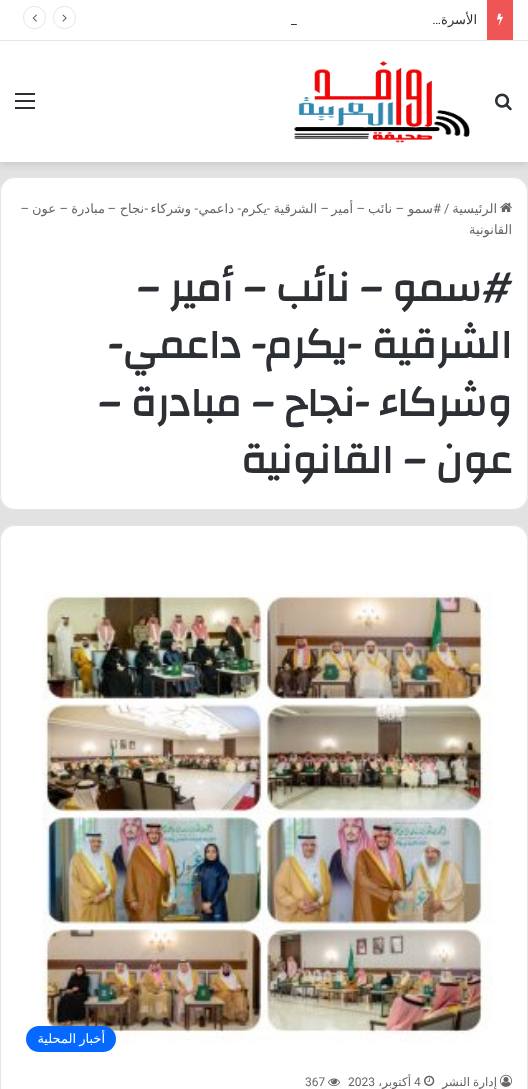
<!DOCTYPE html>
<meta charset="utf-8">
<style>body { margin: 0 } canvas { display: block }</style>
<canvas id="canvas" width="528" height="1089"></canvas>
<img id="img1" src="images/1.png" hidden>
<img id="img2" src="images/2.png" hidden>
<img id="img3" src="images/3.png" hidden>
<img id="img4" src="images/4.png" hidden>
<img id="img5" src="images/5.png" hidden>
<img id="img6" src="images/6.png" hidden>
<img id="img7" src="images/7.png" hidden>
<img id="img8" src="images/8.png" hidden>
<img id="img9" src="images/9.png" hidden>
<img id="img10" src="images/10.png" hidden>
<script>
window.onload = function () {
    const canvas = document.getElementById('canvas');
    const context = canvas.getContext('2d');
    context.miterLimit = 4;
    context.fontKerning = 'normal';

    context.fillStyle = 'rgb(226, 226, 226)';
    context.fillRect(0, 0, 528, 1089);
    context.fillStyle = 'rgba(0, 0, 0, 0.1)';
    context.filter = 'blur(3.5px)';
    context.beginPath();
    context.rect(0, 44, 528, 121);
    context.fill();
    context.filter = 'none';
    context.fillStyle = 'rgb(255, 255, 255)';
    context.fillRect(0, 0, 528, 40);
    context.fillStyle = 'rgb(230, 230, 230)';
    context.fillRect(0, 40, 528, 1);
    context.fillStyle = 'rgb(240, 85, 85)';
    context.fillRect(487, 0, 26, 40);
    context.drawImage(document.getElementById('img1'), 497, 13, 6, 12);
    context.beginPath();
    context.moveTo(64.5, 28.5);
    context.bezierCurveTo(50, 28.5, 50, 6.5, 64.5, 6.5);
    context.bezierCurveTo(79, 6.5, 79, 28.5, 64.5, 28.5);
    context.closePath();
    context.strokeStyle = 'rgb(230, 230, 230)';
    context.stroke();
    context.drawImage(document.getElementById('img2'), 62, 14, 5, 8);
    context.beginPath();
    context.moveTo(34.5, 28.5);
    context.bezierCurveTo(20, 28.5, 20, 6.5, 34.5, 6.5);
    context.bezierCurveTo(49, 6.5, 49, 28.5, 34.5, 28.5);
    context.closePath();
    context.stroke();
    context.drawImage(document.getElementById('img3'), 32, 14, 5, 8);
    context.fillStyle = 'rgb(255, 255, 255)';
    context.fillRect(0, 41, 528, 121);
    context.drawImage(document.getElementById('img4'), 495, 93, 17, 18);
    context.drawImage(document.getElementById('img5'), 294, 61, 176, 82);
    context.fillStyle = 'rgb(44, 47, 52)';
    context.fillRect(15, 100, 20, 2);
    context.fillRect(15, 93, 20, 2);
    context.fillRect(15, 107, 20, 2);
    context.fillStyle = 'rgb(255, 255, 255)';
    context.beginPath();
    context.roundRect(0, 177, 528, 333, 15);
    context.fill();
    context.beginPath();
    context.roundRect(0.5, 177.5, 527, 332, 14.5);
    context.strokeStyle = 'rgba(0, 0, 0, 0.1)';
    context.stroke();
    context.drawImage(document.getElementById('img6'), 500, 202, 12, 11);
    context.beginPath();
    context.roundRect(0, 525, 528, 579, 15);
    context.fill();
    context.beginPath();
    context.roundRect(0.5, 525.5, 527, 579, 14.5);
    context.stroke();
    context.drawImage(document.getElementById('img7'), 42, 592, 451, 451);
    context.fillStyle = 'rgb(6, 105, 255)';
    context.beginPath();
    context.roundRect(26, 1026, 90, 26, 13);
    context.fill();
    context.drawImage(document.getElementById('img8'), 500, 1074, 12, 13);
    context.drawImage(document.getElementById('img9'), 424, 1075, 11, 11);
    context.drawImage(document.getElementById('img10'), 328, 1078, 12, 9);
    context.direction = 'rtl';
    context.font = '13px DejaVu Sans';
    context.fillStyle = 'rgb(44, 47, 52)';
    context.fillText('الأسرة', 477, 24);
    context.font = '13px Roboto';
    context.fillText('…', 441, 24);
    context.direction = 'ltr';
    context.fillText('_', 291, 24);
    context.direction = 'rtl';
    context.font = '13px DejaVu Sans';
    context.fillStyle = 'rgb(102, 102, 102)';
    context.fillText('الرئيسية', 497, 213);
    context.direction = 'ltr';
    context.font = '13px Roboto';
    context.fillText('/', 444, 213);
    context.direction = 'rtl';
    context.fillText('#', 441, 213);
    context.font = '13px DejaVu Sans';
    context.fillText('سمو', 433, 213);
    context.font = '13px Roboto';
    context.fillText('–', 404, 213);
    context.font = '13px DejaVu Sans';
    context.fillText('نائب', 392, 213);
    context.font = '13px Roboto';
    context.fillText('–', 365, 213);
    context.font = '13px DejaVu Sans';
    context.fillText('أمير', 353, 213);
    context.font = '13px Roboto';
    context.fillText('–', 329, 213);
    context.font = '13px DejaVu Sans';
    context.fillText('الشرقية', 317, 213);
    context.fillText('يكرم', 267, 213);
    context.font = '13px Roboto';
    context.fillText('-', 270, 213);
    context.fillText('-', 241, 213);
    context.font = '13px DejaVu Sans';
    context.fillText('داعمي', 234, 213);
    context.font = '13px Roboto';
    context.fillText('-', 198, 213);
    context.font = '13px DejaVu Sans';
    context.fillText('وشركاء', 191, 213);
    context.font = '13px Roboto';
    context.fillText('-', 148, 213);
    context.font = '13px DejaVu Sans';
    context.fillText('نجاح', 144, 213);
    context.font = '13px Roboto';
    context.fillText('–', 116, 213);
    context.font = '13px DejaVu Sans';
    context.fillText('مبادرة', 105, 213);
    context.font = '13px Roboto';
    context.fillText('–', 68, 213);
    context.font = '13px DejaVu Sans';
    context.fillText('عون', 56, 213);
    context.font = '13px Roboto';
    context.fillText('–', 29, 213);
    context.font = '13px DejaVu Sans';
    context.fillText('القانونية', 512, 234);
    context.font = 'bold 41px Changa';
    context.fillStyle = 'rgb(44, 47, 52)';
    context.fillText('#سمو – نائب – أمير –', 512, 301);
    context.fillText('الشرقية -يكرم- داعمي-', 512, 358);
    context.fillText('وشركاء -نجاح – مبادرة –', 512, 416);
    context.fillText('عون – القانونية', 512, 473);
    context.wordSpacing = '-1px';
    context.font = '13px DejaVu Sans';
    context.fillStyle = 'rgb(255, 255, 255)';
    context.fillText('أخبار المحلية', 105, 1043);
    context.font = '12px DejaVu Sans';
    context.fillStyle = 'rgb(102, 102, 102)';
    context.fillText('إدارة النشر', 497, 1086);
    context.wordSpacing = '0px';
    context.direction = 'ltr';
    context.font = '12px Roboto';
    context.fillText('4', 414, 1086);
    context.direction = 'rtl';
    context.font = '12px DejaVu Sans';
    context.fillText('أكتوبر،', 411, 1086);
    context.direction = 'ltr';
    context.font = '12px Roboto';
    context.fillText('2023', 348, 1086);
    context.fillText('367', 305, 1086);
};
</script>
